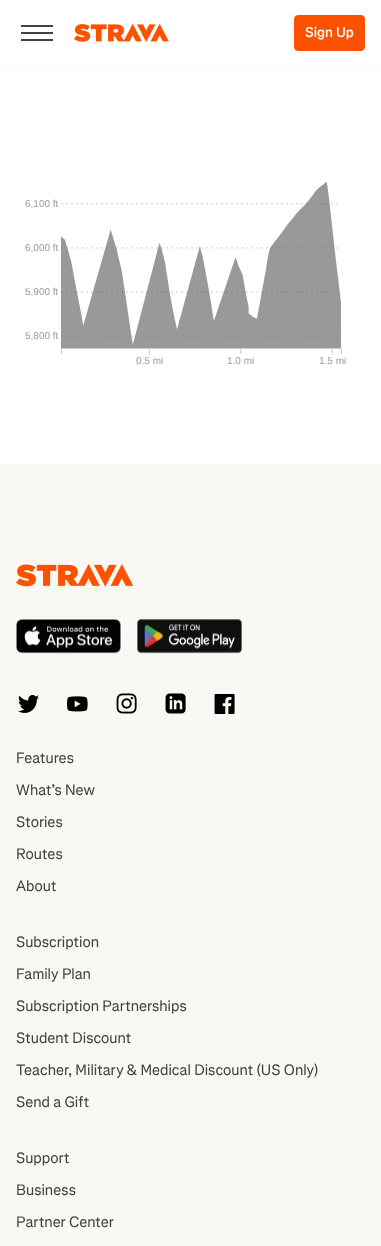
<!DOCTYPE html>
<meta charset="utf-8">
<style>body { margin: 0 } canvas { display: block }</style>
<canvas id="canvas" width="381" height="1246"></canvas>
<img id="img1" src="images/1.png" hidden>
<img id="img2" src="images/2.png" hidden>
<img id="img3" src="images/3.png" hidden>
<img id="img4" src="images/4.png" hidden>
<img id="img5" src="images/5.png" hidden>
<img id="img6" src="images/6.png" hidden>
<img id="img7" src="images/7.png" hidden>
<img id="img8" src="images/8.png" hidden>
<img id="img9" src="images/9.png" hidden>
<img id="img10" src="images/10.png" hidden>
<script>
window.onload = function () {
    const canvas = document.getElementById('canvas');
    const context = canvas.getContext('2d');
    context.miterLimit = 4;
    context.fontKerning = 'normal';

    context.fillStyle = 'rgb(255, 255, 255)';
    context.fillRect(0, 0, 381, 1246);
    context.fillStyle = 'rgb(250, 250, 250)';
    context.fillRect(0, 66, 381, 1);
    context.fillStyle = 'rgb(67, 66, 63)';
    context.fillRect(21, 25, 32, 2);
    context.fillRect(21, 32, 32, 2);
    context.fillRect(21, 39, 32, 2);
    context.drawImage(document.getElementById('img1'), 74, 23, 95, 19);
    context.fillStyle = 'rgb(252, 82, 0)';
    context.beginPath();
    context.roundRect(294.5, 15.5, 70, 35, 3.5);
    context.fill();
    context.strokeStyle = 'rgb(252, 82, 0)';
    context.stroke();
    context.drawImage(document.getElementById('img2'), 61, 181, 281, 173);
    context.fillStyle = 'rgb(249, 248, 245)';
    context.fillRect(0, 464, 381, 782);
    context.drawImage(document.getElementById('img3'), 16, 564, 117, 23);
    context.drawImage(document.getElementById('img4'), 16, 619, 105, 35);
    context.drawImage(document.getElementById('img5'), 137, 619, 105, 35);
    context.drawImage(document.getElementById('img6'), 18, 695, 21, 18);
    context.drawImage(document.getElementById('img7'), 67, 696, 21, 16);
    context.drawImage(document.getElementById('img8'), 116, 693, 21, 21);
    context.drawImage(document.getElementById('img9'), 165, 693, 21, 21);
    context.drawImage(document.getElementById('img10'), 214, 694, 21, 20);
    context.font = '500 14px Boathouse';
    context.fillStyle = 'rgb(255, 255, 255)';
    context.fillText('Sign Up', 305, 37);
    context.font = '10px Liberation Sans';
    context.fillStyle = 'rgb(153, 153, 153)';
    context.fillText('6,100 ft', 25, 207);
    context.fillText('6,000 ft', 25, 251);
    context.fillText('5,900 ft', 25, 295);
    context.fillText('5,800 ft', 25, 339);
    context.fillText('0.5 mi', 136, 364);
    context.fillText('1.0 mi', 227, 364);
    context.fillText('1.5 mi', 319, 364);
    context.font = '15px Boathouse';
    context.fillStyle = 'rgb(67, 66, 63)';
    context.fillText('Features', 16, 763);
    context.fillText('What’s New', 16, 795);
    context.fillText('Stories', 16, 827);
    context.fillText('Routes', 16, 859);
    context.fillText('About', 16, 891);
    context.fillText('Subscription', 16, 947);
    context.fillText('Family Plan', 16, 979);
    context.fillText('Subscription Partnerships', 16, 1011);
    context.fillText('Student Discount', 16, 1043);
    context.fillText('Teacher, Military & Medical Discount (US Only)', 16, 1075);
    context.fillText('Send a Gift', 16, 1107);
    context.fillText('Support', 16, 1163);
    context.fillText('Business', 16, 1195);
    context.fillText('Partner Center', 16, 1227);
};
</script>
